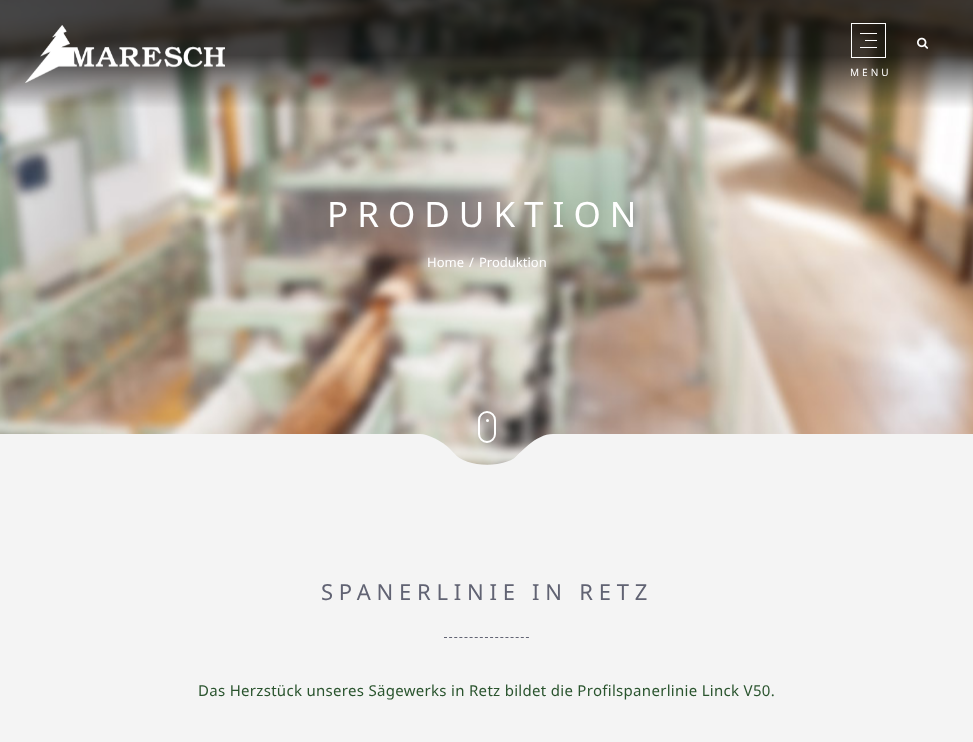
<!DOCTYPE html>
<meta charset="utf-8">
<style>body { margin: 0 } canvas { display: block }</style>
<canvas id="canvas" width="973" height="742"></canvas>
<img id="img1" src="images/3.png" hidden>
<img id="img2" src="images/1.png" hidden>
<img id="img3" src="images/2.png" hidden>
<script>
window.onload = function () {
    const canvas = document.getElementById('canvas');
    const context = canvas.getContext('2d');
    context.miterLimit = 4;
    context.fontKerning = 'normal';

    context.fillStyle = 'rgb(244, 244, 244)';
    context.fillRect(0, 0, 973, 742);
    context.drawImage(document.getElementById('img1'), 0, 0, 973, 465);
    context.drawImage(document.getElementById('img2'), 25, 25, 200, 58);
    context.drawImage(document.getElementById('img3'), 917, 37, 12, 12);
    context.strokeStyle = 'rgb(255, 255, 255)';
    context.strokeRect(851.5, 23.5, 34, 34);
    context.fillStyle = 'rgb(255, 255, 255)';
    context.fillRect(860, 33, 17, 1);
    context.fillRect(865, 40, 12, 1);
    context.fillRect(860, 47, 17, 1);
    context.beginPath();
    context.roundRect(479, 412, 16, 30, 8);
    context.lineWidth = 2;
    context.stroke();
    context.beginPath();
    context.arc(487.5, 420.5, 1.5, 0, 2 * Math.PI);
    context.fill();
    context.save();
    context.beginPath();
    context.rect(0, 432, 973, 33);
    context.clip();
    context.fillStyle = 'rgb(244, 244, 244)';
    context.beginPath();
    context.moveTo(-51, 434);
    context.lineTo(420, 434);
    context.bezierCurveTo(428, 434, 442, 441, 450, 449);
    context.lineTo(466, 466);
    context.lineTo(-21, 466);
    context.closePath();
    context.fill();
    context.restore();
    context.save();
    context.beginPath();
    context.rect(451, 453, 70, 12);
    context.clip();
    context.fillStyle = 'rgb(244, 244, 244)';
    context.beginPath();
    context.moveTo(451, 445);
    context.lineTo(451, 451);
    context.bezierCurveTo(451, 475, 514, 478, 522, 455);
    context.bezierCurveTo(524, 451, 523, 442, 523, 436);
    context.lineTo(523, 431);
    context.bezierCurveTo(523, 436, 524, 444, 522, 449);
    context.bezierCurveTo(514, 472, 451, 469, 451, 445);
    context.closePath();
    context.fill();
    context.restore();
    context.save();
    context.beginPath();
    context.rect(0, 432, 973, 33);
    context.clip();
    context.fillStyle = 'rgb(244, 244, 244)';
    context.beginPath();
    context.moveTo(553, 434);
    context.lineTo(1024, 434);
    context.lineTo(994, 466);
    context.lineTo(507, 466);
    context.bezierCurveTo(519, 454, 535, 434, 553, 434);
    context.closePath();
    context.fill();
    context.restore();
    context.beginPath();
    context.moveTo(444, 637.5);
    context.lineTo(529, 637.5);
    context.strokeStyle = 'rgb(97, 99, 115)';
    context.lineWidth = 1;
    context.setLineDash([3, 2.12]);
    context.stroke();
    context.letterSpacing = '3px';
    context.font = '10px Noto Sans';
    context.fillText('MENU', 850, 76);
    context.letterSpacing = '9px';
    context.font = '35px Noto Sans';
    context.fillText('PRODUKTION', 327, 227);
    context.letterSpacing = '0px';
    context.font = '13px Noto Sans';
    context.fillText('Home', 427, 267);
    context.fillText('/', 469, 267);
    context.fillText('Produktion', 479, 267);
    context.letterSpacing = '5.75px';
    context.font = '22px Noto Sans';
    context.fillStyle = 'rgb(97, 99, 115)';
    context.fillText('SPANERLINIE IN RETZ', 321, 600);
    context.letterSpacing = '0.3px';
    context.font = '15px Noto Sans';
    context.fillStyle = 'rgb(42, 84, 46)';
    context.fillText('Das Herzstück unseres Sägewerks in Retz bildet die Profilspanerlinie Linck V50.', 198, 696);
};
</script>
